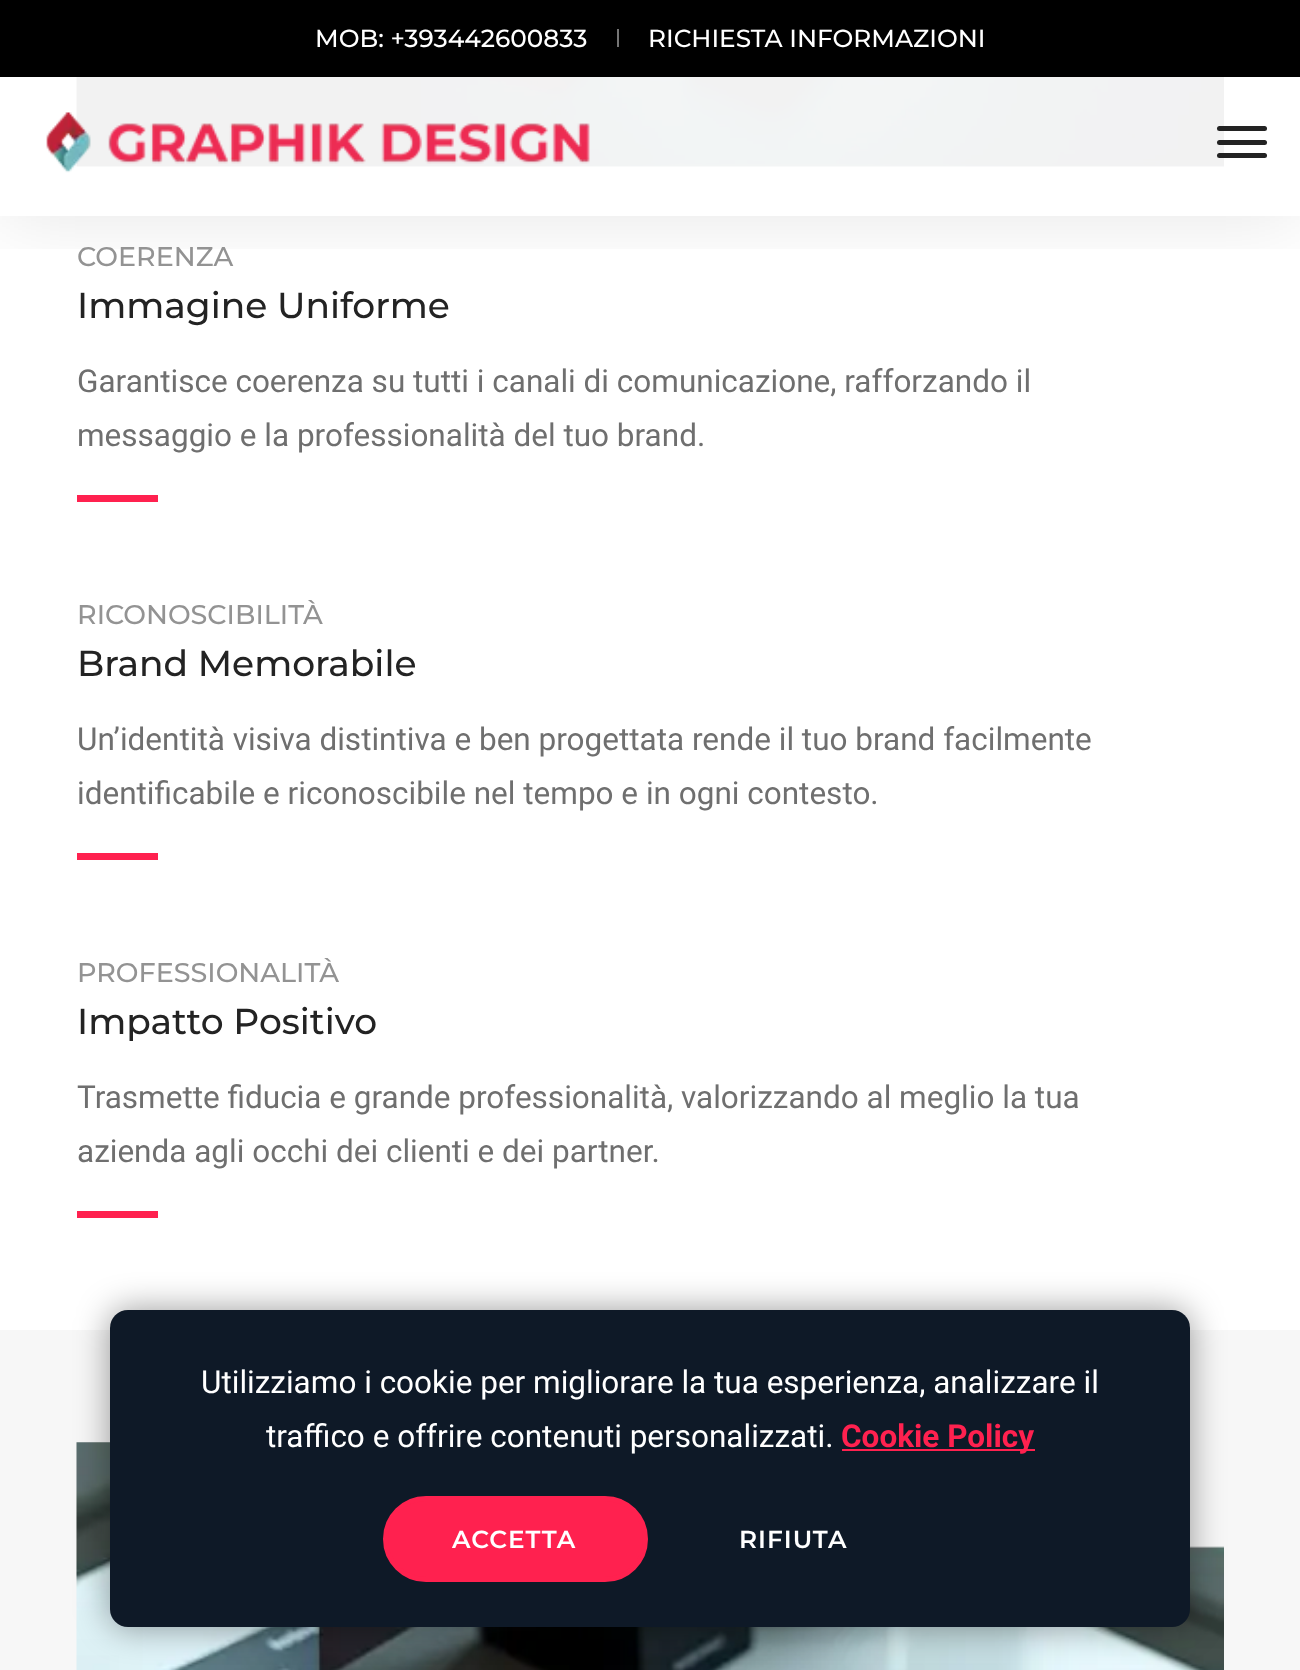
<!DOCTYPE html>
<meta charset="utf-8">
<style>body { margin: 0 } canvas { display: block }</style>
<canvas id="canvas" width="1300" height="1670"></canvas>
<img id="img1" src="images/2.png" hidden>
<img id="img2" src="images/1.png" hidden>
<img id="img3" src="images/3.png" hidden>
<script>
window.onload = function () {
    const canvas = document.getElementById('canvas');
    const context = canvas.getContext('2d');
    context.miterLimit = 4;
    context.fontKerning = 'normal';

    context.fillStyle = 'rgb(255, 255, 255)';
    context.fillRect(0, 0, 1300, 1670);
    context.drawImage(document.getElementById('img1'), 76, 77, 1148, 90);
    context.save();
    context.beginPath();
    context.rect(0, 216, 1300, 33);
    context.clip();
    context.fillStyle = 'rgba(0, 0, 0, 0.1)';
    context.filter = 'blur(39.5px)';
    context.beginPath();
    context.rect(0, 68, 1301, 148);
    context.fill();
    context.filter = 'none';
    context.restore();
    context.fillStyle = 'rgba(255, 255, 255, 0.95)';
    context.fillRect(76, 77, 1148, 90);
    context.drawImage(document.getElementById('img2'), 46, 112, 544, 61);
    context.fillStyle = 'rgb(35, 35, 35)';
    context.beginPath();
    context.roundRect(1217, 126, 50, 5, 2.5);
    context.fill();
    context.beginPath();
    context.roundRect(1217, 140, 50, 5, 2.5);
    context.fill();
    context.beginPath();
    context.roundRect(1217, 153, 50, 5, 2.5);
    context.fill();
    context.fillStyle = 'rgb(0, 0, 0)';
    context.fillRect(0, 0, 1300, 77);
    context.fillStyle = 'rgb(117, 117, 117)';
    context.fillRect(617, 29, 2, 18);
    context.fillStyle = 'rgb(255, 33, 79)';
    context.fillRect(77, 495, 81, 7);
    context.fillRect(77, 853, 81, 7);
    context.fillRect(77, 1211, 81, 7);
    context.fillStyle = 'rgb(247, 247, 247)';
    context.fillRect(0, 1330, 1300, 340);
    context.drawImage(document.getElementById('img3'), 76, 1442, 1148, 228);
    context.fillStyle = 'rgba(0, 0, 0, 0.4)';
    context.filter = 'blur(17px)';
    context.beginPath();
    context.roundRect(110, 1310, 1080, 317, 18);
    context.fill();
    context.filter = 'none';
    context.fillStyle = 'rgb(14, 25, 39)';
    context.beginPath();
    context.roundRect(110, 1310, 1080, 317, 18);
    context.fill();
    context.fillStyle = 'rgb(255, 33, 79)';
    context.fillRect(842, 1449, 193, 2);
    context.beginPath();
    context.roundRect(385.5, 1498.5, 260, 81, 40.5);
    context.fill();
    context.strokeStyle = 'rgb(255, 33, 79)';
    context.lineWidth = 5;
    context.stroke();
    context.font = '500 24.75px Montserrat';
    context.fillStyle = 'rgb(255, 255, 255)';
    context.fillText('MOB: +393442600833', 315, 47);
    context.fillText('RICHIESTA INFORMAZIONI', 648, 47);
    context.font = '500 27px Montserrat';
    context.fillStyle = 'rgb(147, 147, 147)';
    context.fillText('COERENZA', 77, 266);
    context.font = '500 36px Montserrat';
    context.fillStyle = 'rgb(35, 35, 35)';
    context.fillText('Immagine Uniforme', 77, 318);
    context.font = '31.5px Roboto';
    context.fillStyle = 'rgb(111, 111, 111)';
    context.fillText('Garantisce coerenza su tutti i canali di comunicazione, rafforzando il', 77, 392);
    context.fillText('messaggio e la professionalità del tuo brand.', 77, 446);
    context.font = '500 27px Montserrat';
    context.fillStyle = 'rgb(147, 147, 147)';
    context.fillText('RICONOSCIBILITÀ', 77, 624);
    context.font = '500 36px Montserrat';
    context.fillStyle = 'rgb(35, 35, 35)';
    context.fillText('Brand Memorabile', 77, 676);
    context.font = '31.5px Roboto';
    context.fillStyle = 'rgb(111, 111, 111)';
    context.fillText('Un’identità visiva distintiva e ben progettata rende il tuo brand facilmente', 77, 750);
    context.fillText('identificabile e riconoscibile nel tempo e in ogni contesto.', 77, 804);
    context.font = '500 27px Montserrat';
    context.fillStyle = 'rgb(147, 147, 147)';
    context.fillText('PROFESSIONALITÀ', 77, 982);
    context.font = '500 36px Montserrat';
    context.fillStyle = 'rgb(35, 35, 35)';
    context.fillText('Impatto Positivo', 77, 1034);
    context.font = '31.5px Roboto';
    context.fillStyle = 'rgb(111, 111, 111)';
    context.fillText('Trasmette fiducia e grande professionalità, valorizzando al meglio la tua', 77, 1108);
    context.fillText('azienda agli occhi dei clienti e dei partner.', 77, 1162);
    context.fillStyle = 'rgb(255, 255, 255)';
    context.fillText('Utilizziamo i cookie per migliorare la tua esperienza, analizzare il', 201, 1393);
    context.fillText('traffico e offrire contenuti personalizzati.', 266, 1447);
    context.font = 'bold 31.5px Roboto';
    context.fillStyle = 'rgb(255, 33, 79)';
    context.fillText('Cookie Policy', 841, 1447);
    context.letterSpacing = '1px';
    context.font = '600 24.75px Montserrat';
    context.fillStyle = 'rgb(255, 255, 255)';
    context.fillText('ACCETTA', 452, 1548);
    context.fillText('RIFIUTA', 739, 1548);
};
</script>
